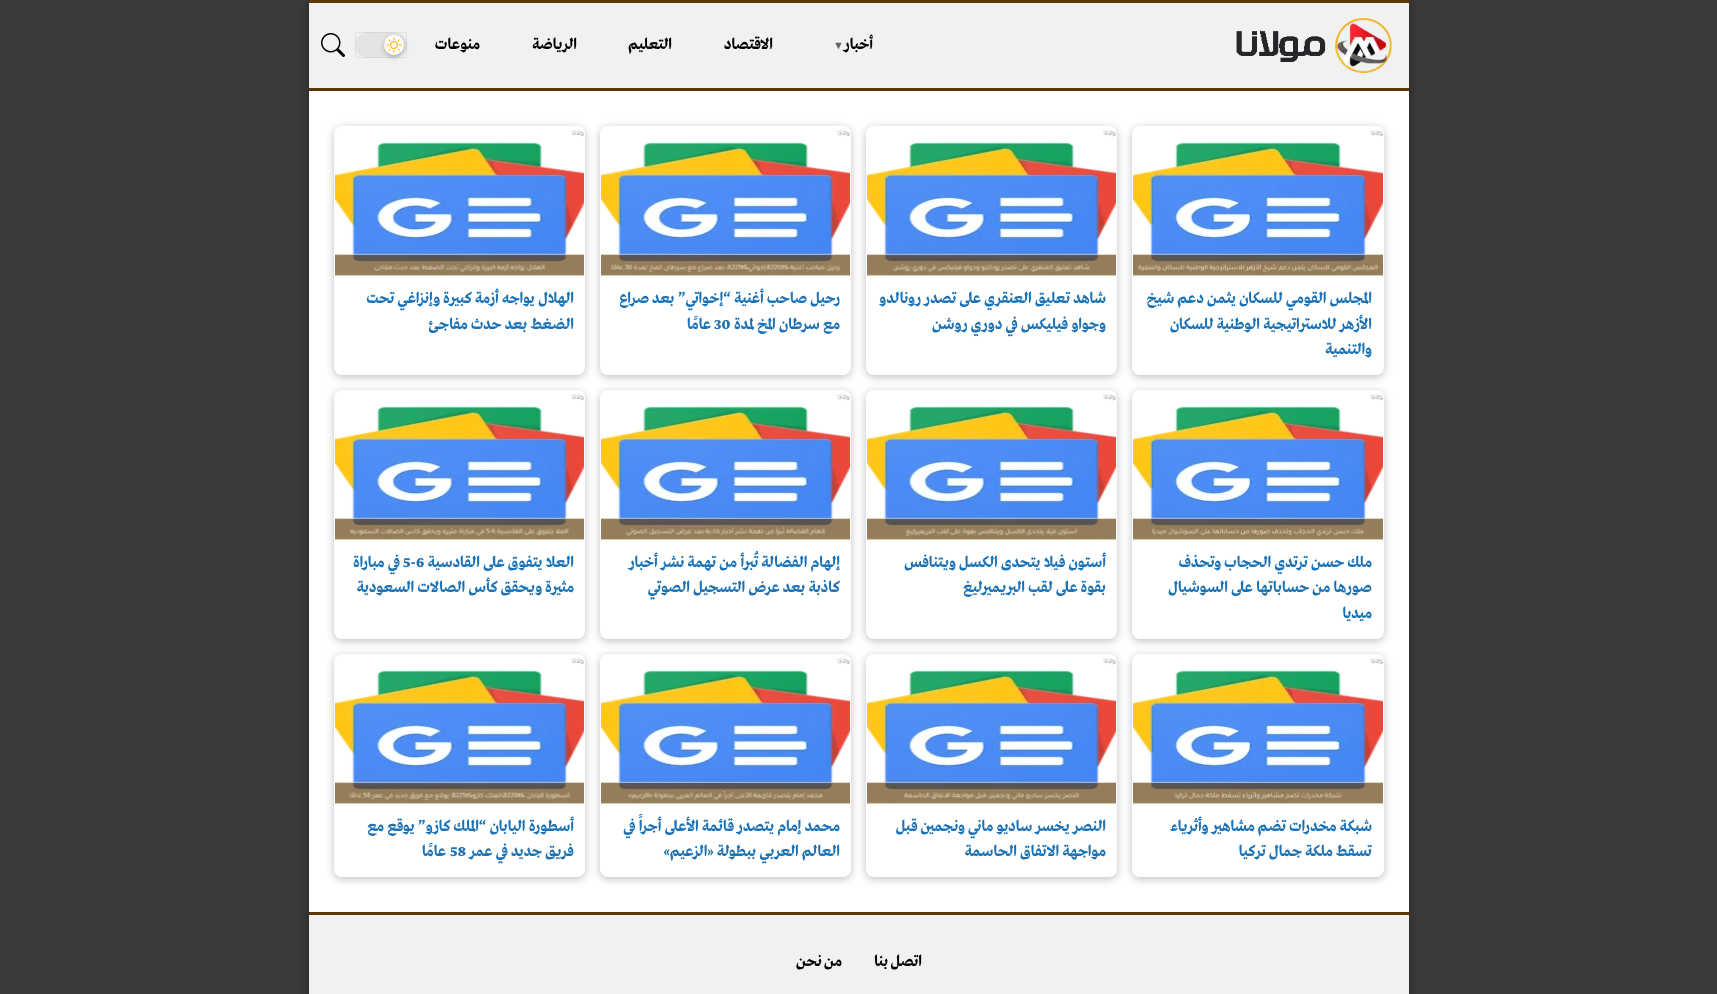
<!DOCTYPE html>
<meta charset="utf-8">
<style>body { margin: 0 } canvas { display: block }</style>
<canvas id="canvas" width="1717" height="994"></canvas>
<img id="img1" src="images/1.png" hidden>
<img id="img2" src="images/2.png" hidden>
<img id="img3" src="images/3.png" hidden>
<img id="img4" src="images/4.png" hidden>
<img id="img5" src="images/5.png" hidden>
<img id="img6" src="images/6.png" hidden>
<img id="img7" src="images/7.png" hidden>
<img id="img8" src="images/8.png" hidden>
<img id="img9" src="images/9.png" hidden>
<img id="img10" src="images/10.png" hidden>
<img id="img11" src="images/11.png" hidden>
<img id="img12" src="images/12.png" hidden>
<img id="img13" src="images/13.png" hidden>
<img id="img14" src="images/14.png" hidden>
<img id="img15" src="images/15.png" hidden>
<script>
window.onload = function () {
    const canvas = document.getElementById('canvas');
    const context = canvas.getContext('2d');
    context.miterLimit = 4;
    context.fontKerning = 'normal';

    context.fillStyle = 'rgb(58, 58, 58)';
    context.fillRect(0, 0, 1717, 994);
    context.fillStyle = 'rgba(0, 0, 0, 0.4)';
    context.filter = 'blur(4px)';
    context.beginPath();
    context.rect(309, 2, 1100, 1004);
    context.fill();
    context.filter = 'none';
    context.fillStyle = 'rgb(255, 255, 255)';
    context.fillRect(309, 91, 1100, 821);
    context.fillStyle = 'rgb(241, 241, 241)';
    context.fillRect(309, 3, 1100, 85);
    context.fillStyle = 'rgb(94, 56, 0)';
    context.fillRect(309, 0, 1100, 3);
    context.fillRect(309, 88, 1100, 3);
    context.drawImage(document.getElementById('img1'), 1236, 18, 156, 55);
    context.fillStyle = 'rgb(228, 228, 228)';
    context.beginPath();
    context.roundRect(355, 32, 52, 26, 13);
    context.fill();
    context.strokeStyle = 'rgba(0, 0, 0, 0.06)';
    context.strokeRect(355.5, 32.5, 51, 25);
    context.fillStyle = 'rgba(0, 0, 0, 0.25)';
    context.filter = 'blur(2.5px)';
    context.beginPath();
    context.roundRect(384, 37, 20, 20, 10);
    context.fill();
    context.filter = 'none';
    context.fillStyle = 'rgb(255, 255, 255)';
    context.beginPath();
    context.arc(394, 45, 10, 0, 2 * Math.PI);
    context.fill();
    context.drawImage(document.getElementById('img2'), 386, 37, 16, 16);
    context.drawImage(document.getElementById('img3'), 321, 33, 24, 24);
    context.fillStyle = 'rgba(0, 0, 0, 0.25)';
    context.filter = 'blur(4px)';
    context.beginPath();
    context.roundRect(1132, 128, 252, 249, 8);
    context.fill();
    context.filter = 'none';
    context.fillStyle = 'rgb(255, 255, 255)';
    context.beginPath();
    context.roundRect(1132, 126, 252, 249, 8);
    context.fill();
    context.drawImage(document.getElementById('img4'), 1133, 130, 250, 147);
    context.fillStyle = 'rgba(0, 0, 0, 0.25)';
    context.filter = 'blur(4px)';
    context.beginPath();
    context.roundRect(866, 128, 251, 249, 8);
    context.fill();
    context.filter = 'none';
    context.fillStyle = 'rgb(255, 255, 255)';
    context.beginPath();
    context.roundRect(866, 126, 251, 249, 8);
    context.fill();
    context.drawImage(document.getElementById('img5'), 867, 130, 249, 147);
    context.fillStyle = 'rgba(0, 0, 0, 0.25)';
    context.filter = 'blur(4px)';
    context.beginPath();
    context.roundRect(600, 128, 251, 249, 8);
    context.fill();
    context.filter = 'none';
    context.fillStyle = 'rgb(255, 255, 255)';
    context.beginPath();
    context.roundRect(600, 126, 251, 249, 8);
    context.fill();
    context.drawImage(document.getElementById('img6'), 601, 130, 249, 147);
    context.fillStyle = 'rgba(0, 0, 0, 0.25)';
    context.filter = 'blur(4px)';
    context.beginPath();
    context.roundRect(334, 128, 251, 249, 8);
    context.fill();
    context.filter = 'none';
    context.fillStyle = 'rgb(255, 255, 255)';
    context.beginPath();
    context.roundRect(334, 126, 251, 249, 8);
    context.fill();
    context.drawImage(document.getElementById('img7'), 335, 130, 249, 147);
    context.fillStyle = 'rgba(0, 0, 0, 0.25)';
    context.filter = 'blur(4px)';
    context.beginPath();
    context.roundRect(1132, 392, 252, 249, 8);
    context.fill();
    context.filter = 'none';
    context.fillStyle = 'rgb(255, 255, 255)';
    context.beginPath();
    context.roundRect(1132, 390, 252, 249, 8);
    context.fill();
    context.drawImage(document.getElementById('img8'), 1133, 394, 250, 147);
    context.fillStyle = 'rgba(0, 0, 0, 0.25)';
    context.filter = 'blur(4px)';
    context.beginPath();
    context.roundRect(866, 392, 251, 249, 8);
    context.fill();
    context.filter = 'none';
    context.fillStyle = 'rgb(255, 255, 255)';
    context.beginPath();
    context.roundRect(866, 390, 251, 249, 8);
    context.fill();
    context.drawImage(document.getElementById('img9'), 867, 394, 249, 147);
    context.fillStyle = 'rgba(0, 0, 0, 0.25)';
    context.filter = 'blur(4px)';
    context.beginPath();
    context.roundRect(600, 392, 251, 249, 8);
    context.fill();
    context.filter = 'none';
    context.fillStyle = 'rgb(255, 255, 255)';
    context.beginPath();
    context.roundRect(600, 390, 251, 249, 8);
    context.fill();
    context.drawImage(document.getElementById('img10'), 601, 394, 249, 147);
    context.fillStyle = 'rgba(0, 0, 0, 0.25)';
    context.filter = 'blur(4px)';
    context.beginPath();
    context.roundRect(334, 392, 251, 249, 8);
    context.fill();
    context.filter = 'none';
    context.fillStyle = 'rgb(255, 255, 255)';
    context.beginPath();
    context.roundRect(334, 390, 251, 249, 8);
    context.fill();
    context.drawImage(document.getElementById('img11'), 335, 394, 249, 147);
    context.fillStyle = 'rgba(0, 0, 0, 0.25)';
    context.filter = 'blur(4px)';
    context.beginPath();
    context.roundRect(1132, 656, 252, 223, 8);
    context.fill();
    context.filter = 'none';
    context.fillStyle = 'rgb(255, 255, 255)';
    context.beginPath();
    context.roundRect(1132, 654, 252, 223, 8);
    context.fill();
    context.drawImage(document.getElementById('img12'), 1133, 658, 250, 147);
    context.fillStyle = 'rgba(0, 0, 0, 0.25)';
    context.filter = 'blur(4px)';
    context.beginPath();
    context.roundRect(866, 656, 251, 223, 8);
    context.fill();
    context.filter = 'none';
    context.fillStyle = 'rgb(255, 255, 255)';
    context.beginPath();
    context.roundRect(866, 654, 251, 223, 8);
    context.fill();
    context.drawImage(document.getElementById('img13'), 867, 658, 249, 147);
    context.fillStyle = 'rgba(0, 0, 0, 0.25)';
    context.filter = 'blur(4px)';
    context.beginPath();
    context.roundRect(600, 656, 251, 223, 8);
    context.fill();
    context.filter = 'none';
    context.fillStyle = 'rgb(255, 255, 255)';
    context.beginPath();
    context.roundRect(600, 654, 251, 223, 8);
    context.fill();
    context.drawImage(document.getElementById('img14'), 601, 658, 249, 147);
    context.fillStyle = 'rgba(0, 0, 0, 0.25)';
    context.filter = 'blur(4px)';
    context.beginPath();
    context.roundRect(334, 656, 251, 223, 8);
    context.fill();
    context.filter = 'none';
    context.fillStyle = 'rgb(255, 255, 255)';
    context.beginPath();
    context.roundRect(334, 654, 251, 223, 8);
    context.fill();
    context.drawImage(document.getElementById('img15'), 335, 658, 249, 147);
    context.fillStyle = 'rgb(241, 241, 241)';
    context.fillRect(309, 915, 1100, 79);
    context.fillStyle = 'rgb(94, 56, 0)';
    context.fillRect(309, 912, 1100, 3);
    context.direction = 'rtl';
    context.font = 'bold 16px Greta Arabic';
    context.fillStyle = 'rgb(0, 0, 0)';
    context.fillText('أخبار', 873, 49);
    context.direction = 'ltr';
    context.font = 'bold 11px Liberation Serif';
    context.fillStyle = 'rgb(102, 102, 102)';
    context.fillText('▼', 833, 49);
    context.direction = 'rtl';
    context.font = 'bold 16px Greta Arabic';
    context.fillStyle = 'rgb(0, 0, 0)';
    context.fillText('الاقتصاد', 773, 49);
    context.fillText('التعليم', 672, 49);
    context.fillText('الرياضة', 577, 49);
    context.fillText('منوعات', 480, 49);
    context.fillStyle = 'rgb(27, 114, 181)';
    context.fillText('المجلس القومي للسكان يثمن دعم شيخ', 1372, 303);
    context.fillText('الأزهر للاستراتيجية الوطنية للسكان', 1372, 329);
    context.fillText('والتنمية', 1372, 354);
    context.fillText('شاهد تعليق العنقري على تصدر رونالدو', 1106, 303);
    context.fillText('وجواو فيليكس في دوري روشن', 1106, 329);
    context.fillText('رحيل صاحب أغنية “إخواتي” بعد صراع', 840, 303);
    context.fillText('مع سرطان المخ لمدة', 840, 329);
    context.direction = 'ltr';
    context.fillText('30', 714, 329);
    context.direction = 'rtl';
    context.fillText('عامًا', 711, 329);
    context.fillText('الهلال يواجه أزمة كبيرة وإنزاغي تحت', 574, 303);
    context.fillText('الضغط بعد حدث مفاجئ', 574, 329);
    context.fillText('ملك حسن ترتدي الحجاب وتحذف', 1372, 567);
    context.fillText('صورها من حساباتها على السوشيال', 1372, 592);
    context.fillText('ميديا', 1372, 618);
    context.fillText('أستون فيلا يتحدى الكسل ويتنافس', 1106, 567);
    context.fillText('بقوة على لقب البريميرليغ', 1106, 592);
    context.fillText('إلهام الفضالة تُبرأ من تهمة نشر أخبار', 840, 567);
    context.fillText('كاذبة بعد عرض التسجيل الصوتي', 840, 592);
    context.fillText('العلا يتفوق على القادسية', 574, 567);
    context.direction = 'ltr';
    context.fillText('5-6', 403, 567);
    context.direction = 'rtl';
    context.fillText('في مباراة', 400, 567);
    context.fillText('مثيرة ويحقق كأس الصالات السعودية', 574, 592);
    context.fillText('شبكة مخدرات تضم مشاهير وأثرياء', 1372, 831);
    context.fillText('تسقط ملكة جمال تركيا', 1372, 856);
    context.fillText('النصر يخسر ساديو ماني ونجمين قبل', 1106, 831);
    context.fillText('مواجهة الاتفاق الحاسمة', 1106, 856);
    context.fillText('محمد إمام يتصدر قائمة الأعلى أجراً في', 840, 831);
    context.fillText('العالم العربي ببطولة «الزعيم»', 840, 856);
    context.fillText('أسطورة اليابان “الملك كازو” يوقع مع', 574, 831);
    context.fillText('فريق جديد في عمر', 574, 856);
    context.direction = 'ltr';
    context.fillText('58', 450, 856);
    context.direction = 'rtl';
    context.fillText('عامًا', 446, 856);
    context.wordSpacing = '-1px';
    context.fillStyle = 'rgb(0, 0, 0)';
    context.fillText('اتصل بنا', 922, 966);
    context.fillText('من نحن', 842, 966);
};
</script>
